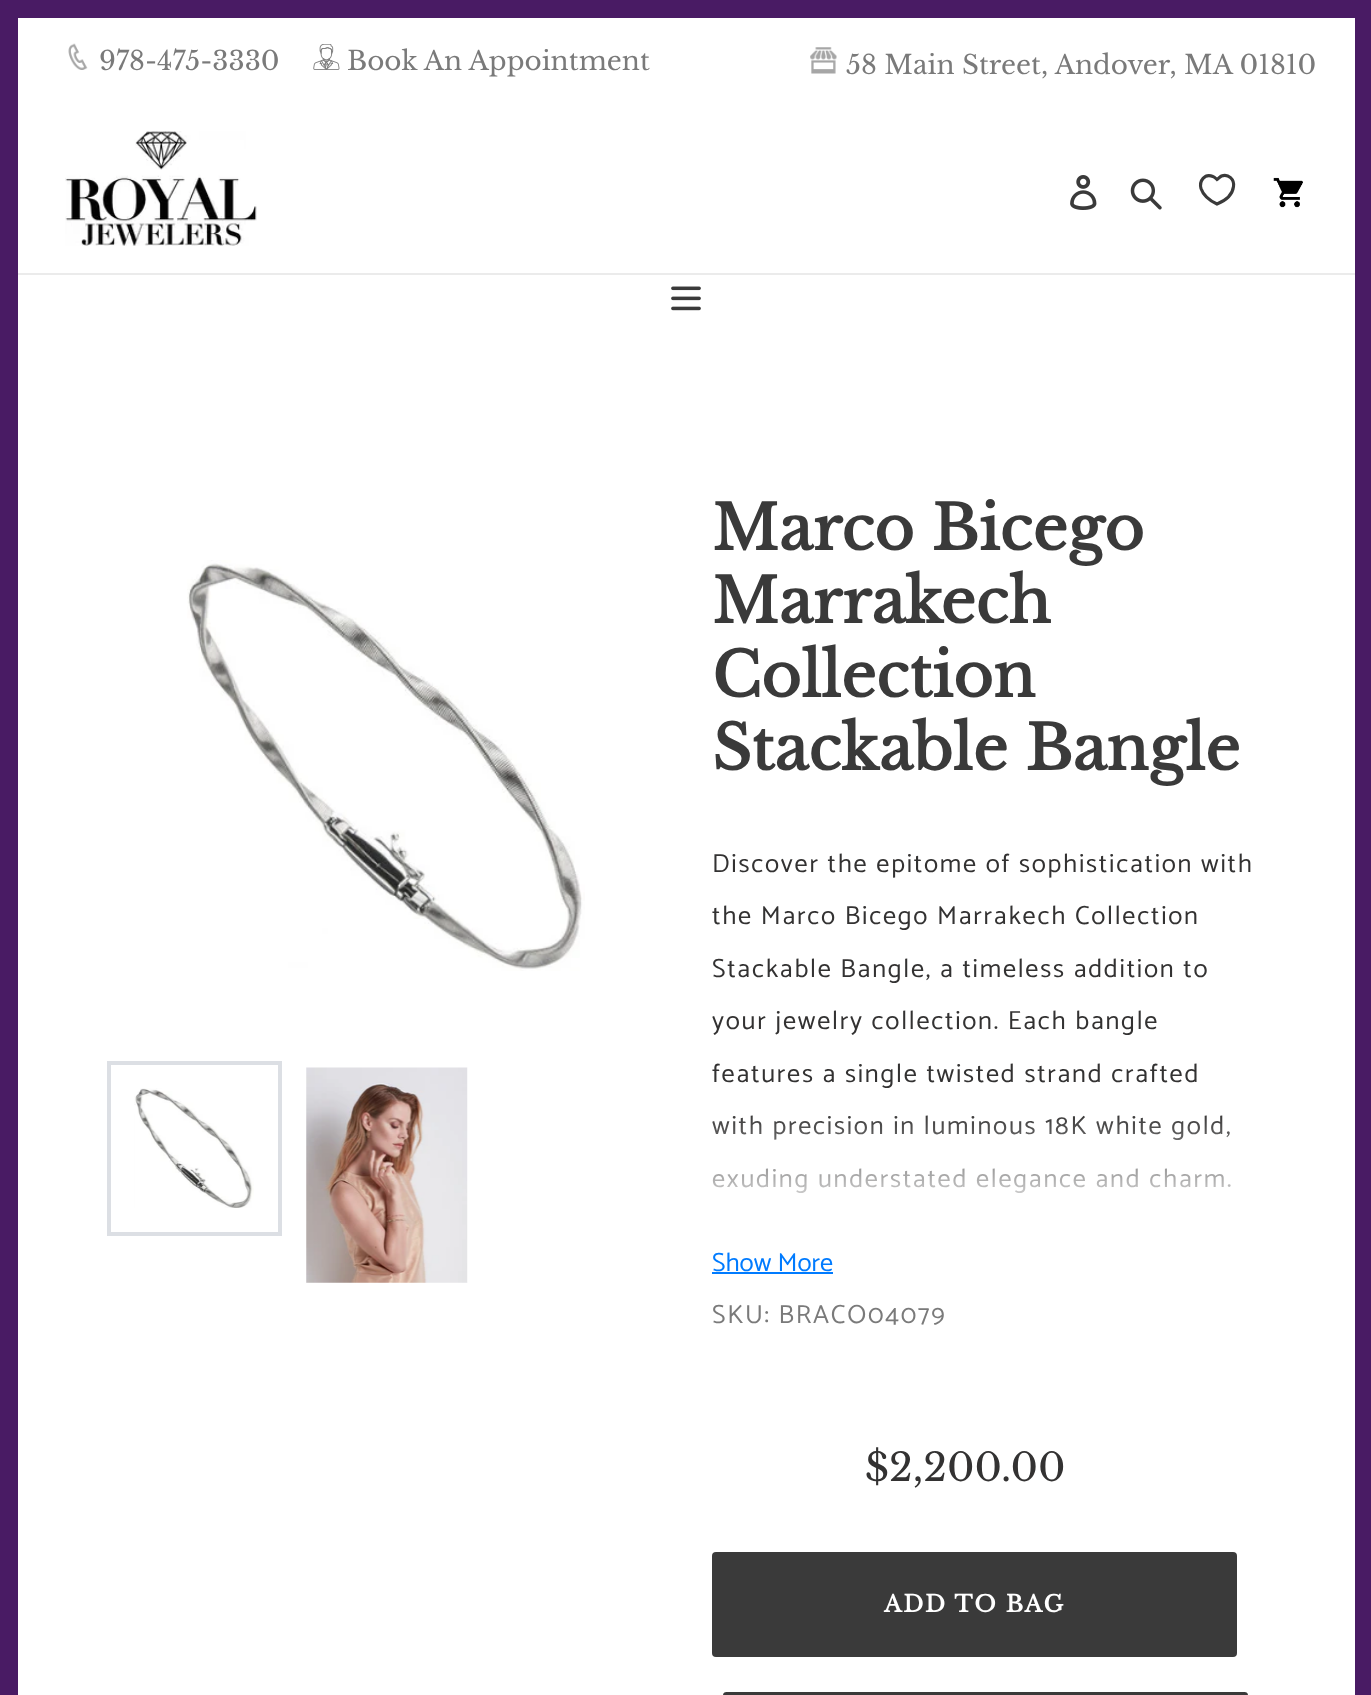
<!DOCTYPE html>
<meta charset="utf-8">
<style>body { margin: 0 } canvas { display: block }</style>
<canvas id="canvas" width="1371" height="1695"></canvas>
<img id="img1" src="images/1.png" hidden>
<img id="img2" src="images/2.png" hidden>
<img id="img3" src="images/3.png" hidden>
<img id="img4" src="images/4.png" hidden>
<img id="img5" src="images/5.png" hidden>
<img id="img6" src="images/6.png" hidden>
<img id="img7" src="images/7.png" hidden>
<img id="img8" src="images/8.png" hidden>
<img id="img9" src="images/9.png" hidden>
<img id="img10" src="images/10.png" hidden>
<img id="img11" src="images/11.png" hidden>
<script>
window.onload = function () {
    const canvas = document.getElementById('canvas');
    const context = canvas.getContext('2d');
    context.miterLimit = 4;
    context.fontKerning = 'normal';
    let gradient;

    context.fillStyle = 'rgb(255, 255, 255)';
    context.fillRect(0, 0, 1371, 1695);
    context.fillStyle = 'rgb(73, 27, 100)';
    context.fillRect(1355, 0, 16, 1695);
    context.fillRect(0, 0, 18, 1695);
    context.fillRect(18, 0, 1337, 18);
    context.drawImage(document.getElementById('img1'), 68, 43, 20, 27);
    context.drawImage(document.getElementById('img2'), 313, 44, 27, 26);
    context.drawImage(document.getElementById('img3'), 810, 47, 27, 27);
    context.fillStyle = 'rgb(235, 235, 235)';
    context.fillRect(18, 273, 1337, 2);
    context.drawImage(document.getElementById('img4'), 65, 131, 192, 115);
    context.drawImage(document.getElementById('img5'), 1070, 175, 27, 35);
    context.drawImage(document.getElementById('img6'), 1130, 178, 32, 32);
    context.beginPath();
    context.moveTo(1217, 204);
    context.bezierCurveTo(1210.5, 201, 1203.5, 196, 1201, 188.5);
    context.bezierCurveTo(1199, 181, 1204.5, 173, 1213, 176.5);
    context.bezierCurveTo(1214.5, 177, 1216, 178.5, 1217, 179.5);
    context.bezierCurveTo(1218.5, 178.5, 1219.5, 177, 1221.5, 176);
    context.bezierCurveTo(1228.5, 173.5, 1234.5, 179.5, 1233.5, 186.5);
    context.bezierCurveTo(1232.5, 195, 1224.5, 201, 1217, 204);
    context.closePath();
    context.strokeStyle = 'rgb(58, 58, 58)';
    context.lineWidth = 3.1;
    context.stroke();
    context.drawImage(document.getElementById('img7'), 1273, 177, 30, 31);
    context.drawImage(document.getElementById('img8'), 671, 286, 30, 25);
    context.drawImage(document.getElementById('img9'), 187, 560, 398, 411);
    context.strokeStyle = 'rgb(220, 223, 228)';
    context.lineWidth = 4;
    context.strokeRect(109, 1063, 171, 171);
    context.drawImage(document.getElementById('img10'), 134, 1088, 120, 120);
    context.drawImage(document.getElementById('img11'), 306, 1067, 162, 216);
    context.fillStyle = 'rgb(0, 123, 255)';
    context.fillRect(712, 1272, 121, 2);
    context.fillStyle = 'rgb(58, 58, 58)';
    context.beginPath();
    context.roundRect(712, 1552, 525, 105, 4);
    context.fill();
    context.beginPath();
    context.roundRect(723, 1692, 525, 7, 4);
    context.fill();
    context.font = '26.25px Libre Baskerville';
    context.fillStyle = 'rgb(122, 122, 122)';
    context.fillText('978-475-3330', 99, 70);
    context.fillText('Book An Appointment', 347, 70);
    context.fillText('58 Main Street, Andover, MA 01810', 846, 74);
    context.font = 'bold 61.25px Libre Baskerville';
    context.fillStyle = 'rgb(58, 58, 58)';
    context.fillText('Marco Bicego', 712, 550);
    context.fillText('Marrakech', 712, 623);
    context.fillText('Collection', 712, 697);
    context.fillText('Stackable Bangle', 712, 770);
    context.letterSpacing = '1.75px';
    context.font = '100 26.25px Catamaran';
    context.fillStyle = 'rgb(51, 50, 50)';
    context.fillText('Discover the epitome of sophistication with', 712, 872);
    context.fillText('the Marco Bicego Marrakech Collection', 712, 924);
    context.fillText('Stackable Bangle, a timeless addition to', 712, 977);
    context.fillText('your jewelry collection. Each bangle', 712, 1029);
    context.fillText('features a single twisted strand crafted', 712, 1082);
    context.fillText('with precision in luminous 18K white gold,', 712, 1134);
    context.fillText('exuding understated elegance and charm.', 712, 1187);
    gradient = context.createLinearGradient(985, 1111, 985, 1223);
    gradient.addColorStop(0, 'rgba(255, 255, 255, 0)');
    gradient.addColorStop(1, 'rgb(255, 255, 255)');
    context.fillStyle = gradient;
    context.fillRect(712, 1115, 519, 78);
    context.letterSpacing = '0px';
    context.fillStyle = 'rgb(0, 123, 255)';
    context.fillText('Show More', 712, 1271);
    context.letterSpacing = '1.75px';
    context.fillStyle = 'rgb(122, 122, 122)';
    context.fillText('SKU: BRACO04079', 712, 1323);
    context.letterSpacing = '0px';
    context.font = '38.5px Libre Baskerville';
    context.fillStyle = 'rgb(51, 50, 50)';
    context.fillText('$2,200.00', 865, 1481);
    context.letterSpacing = '1.75px';
    context.font = 'bold 22.75px Libre Baskerville';
    context.fillStyle = 'rgb(255, 255, 255)';
    context.fillText('ADD TO BAG', 884, 1612);
};
</script>
